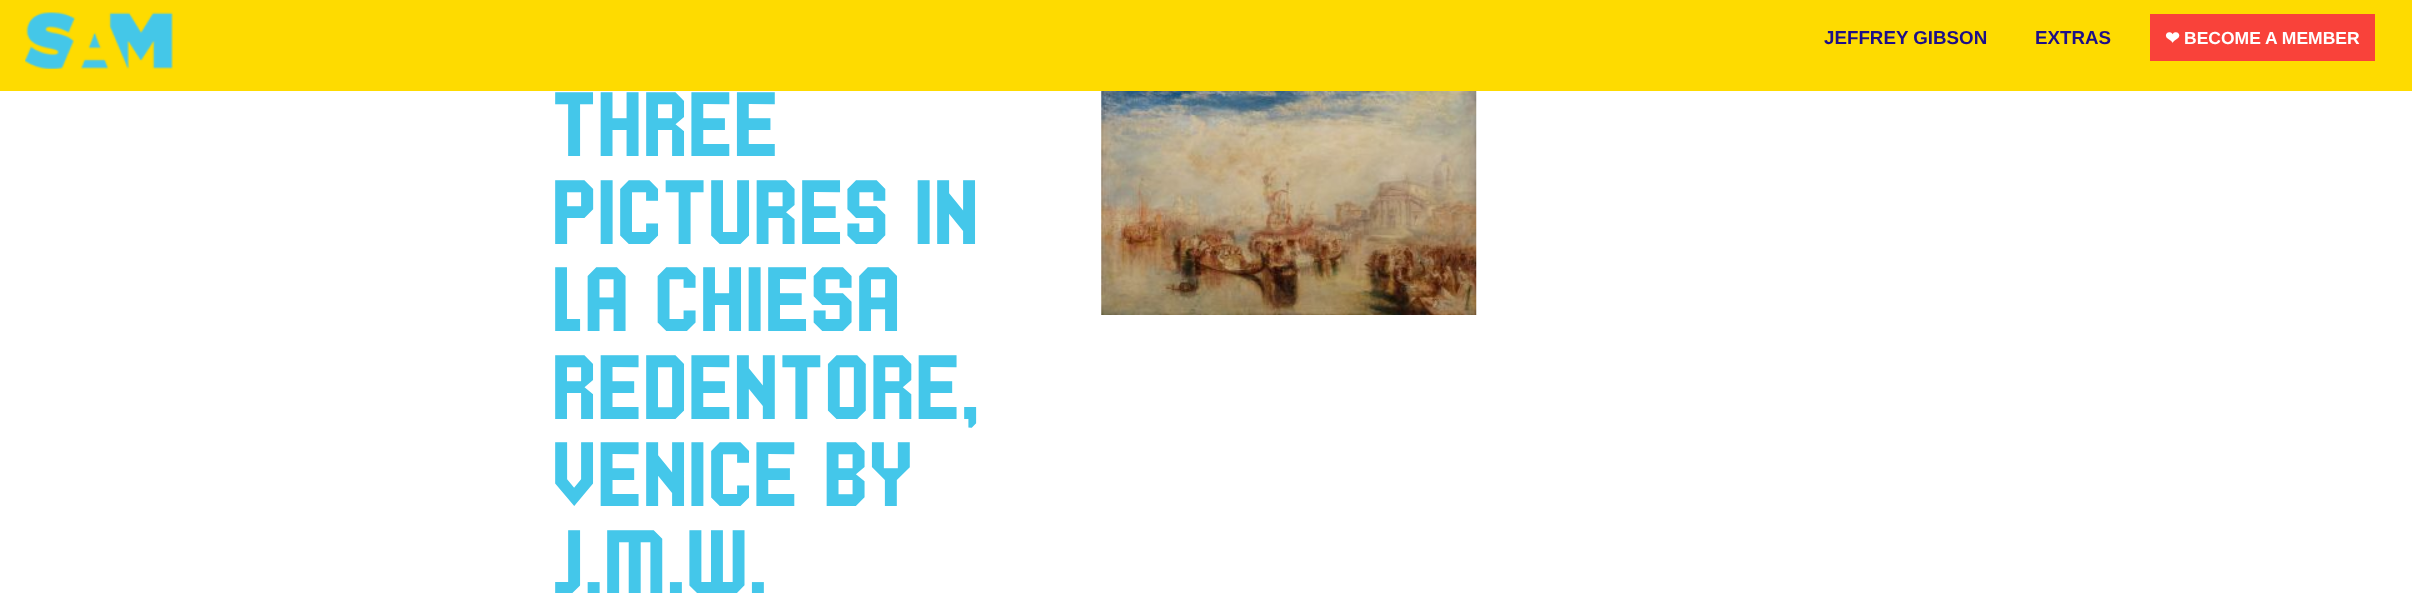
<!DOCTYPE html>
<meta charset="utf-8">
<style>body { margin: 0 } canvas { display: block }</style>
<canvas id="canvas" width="2412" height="593"></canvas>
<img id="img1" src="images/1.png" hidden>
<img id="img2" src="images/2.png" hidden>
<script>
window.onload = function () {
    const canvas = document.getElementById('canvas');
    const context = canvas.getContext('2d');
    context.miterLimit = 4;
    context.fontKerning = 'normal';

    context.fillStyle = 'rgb(255, 255, 255)';
    context.fillRect(0, 0, 2412, 593);
    context.fillStyle = 'rgb(254, 219, 0)';
    context.fillRect(0, 0, 2412, 91);
    context.drawImage(document.getElementById('img1'), 25, 12, 148, 57);
    context.fillStyle = 'rgb(249, 66, 58)';
    context.fillRect(2150, 14, 225, 47);
    context.drawImage(document.getElementById('img2'), 1101, 91, 376, 224);
    context.font = 'bold 18.75px Liberation Sans';
    context.fillStyle = 'rgb(29, 15, 135)';
    context.fillText('JEFFREY GIBSON', 1824, 44);
    context.fillText('EXTRAS', 2035, 44);
    context.font = 'bold 17.5px DejaVu Sans';
    context.fillStyle = 'rgb(255, 255, 255)';
    context.fillText('❤', 2165, 44);
    context.font = 'bold 17.5px Liberation Sans';
    context.fillText('BECOME A MEMBER', 2184, 44);
    context.letterSpacing = '1.25px';
    context.font = '106.25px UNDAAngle';
    context.fillStyle = 'rgb(68, 199, 234)';
    context.fillText('THREE', 552, 156);
    context.fillText('PICTURES IN', 552, 244);
    context.fillText('LA CHIESA', 552, 331);
    context.fillText('REDENTORE,', 552, 419);
    context.fillText('VENICE BY', 552, 506);
    context.fillText('J.M.W.', 552, 594);
};
</script>
